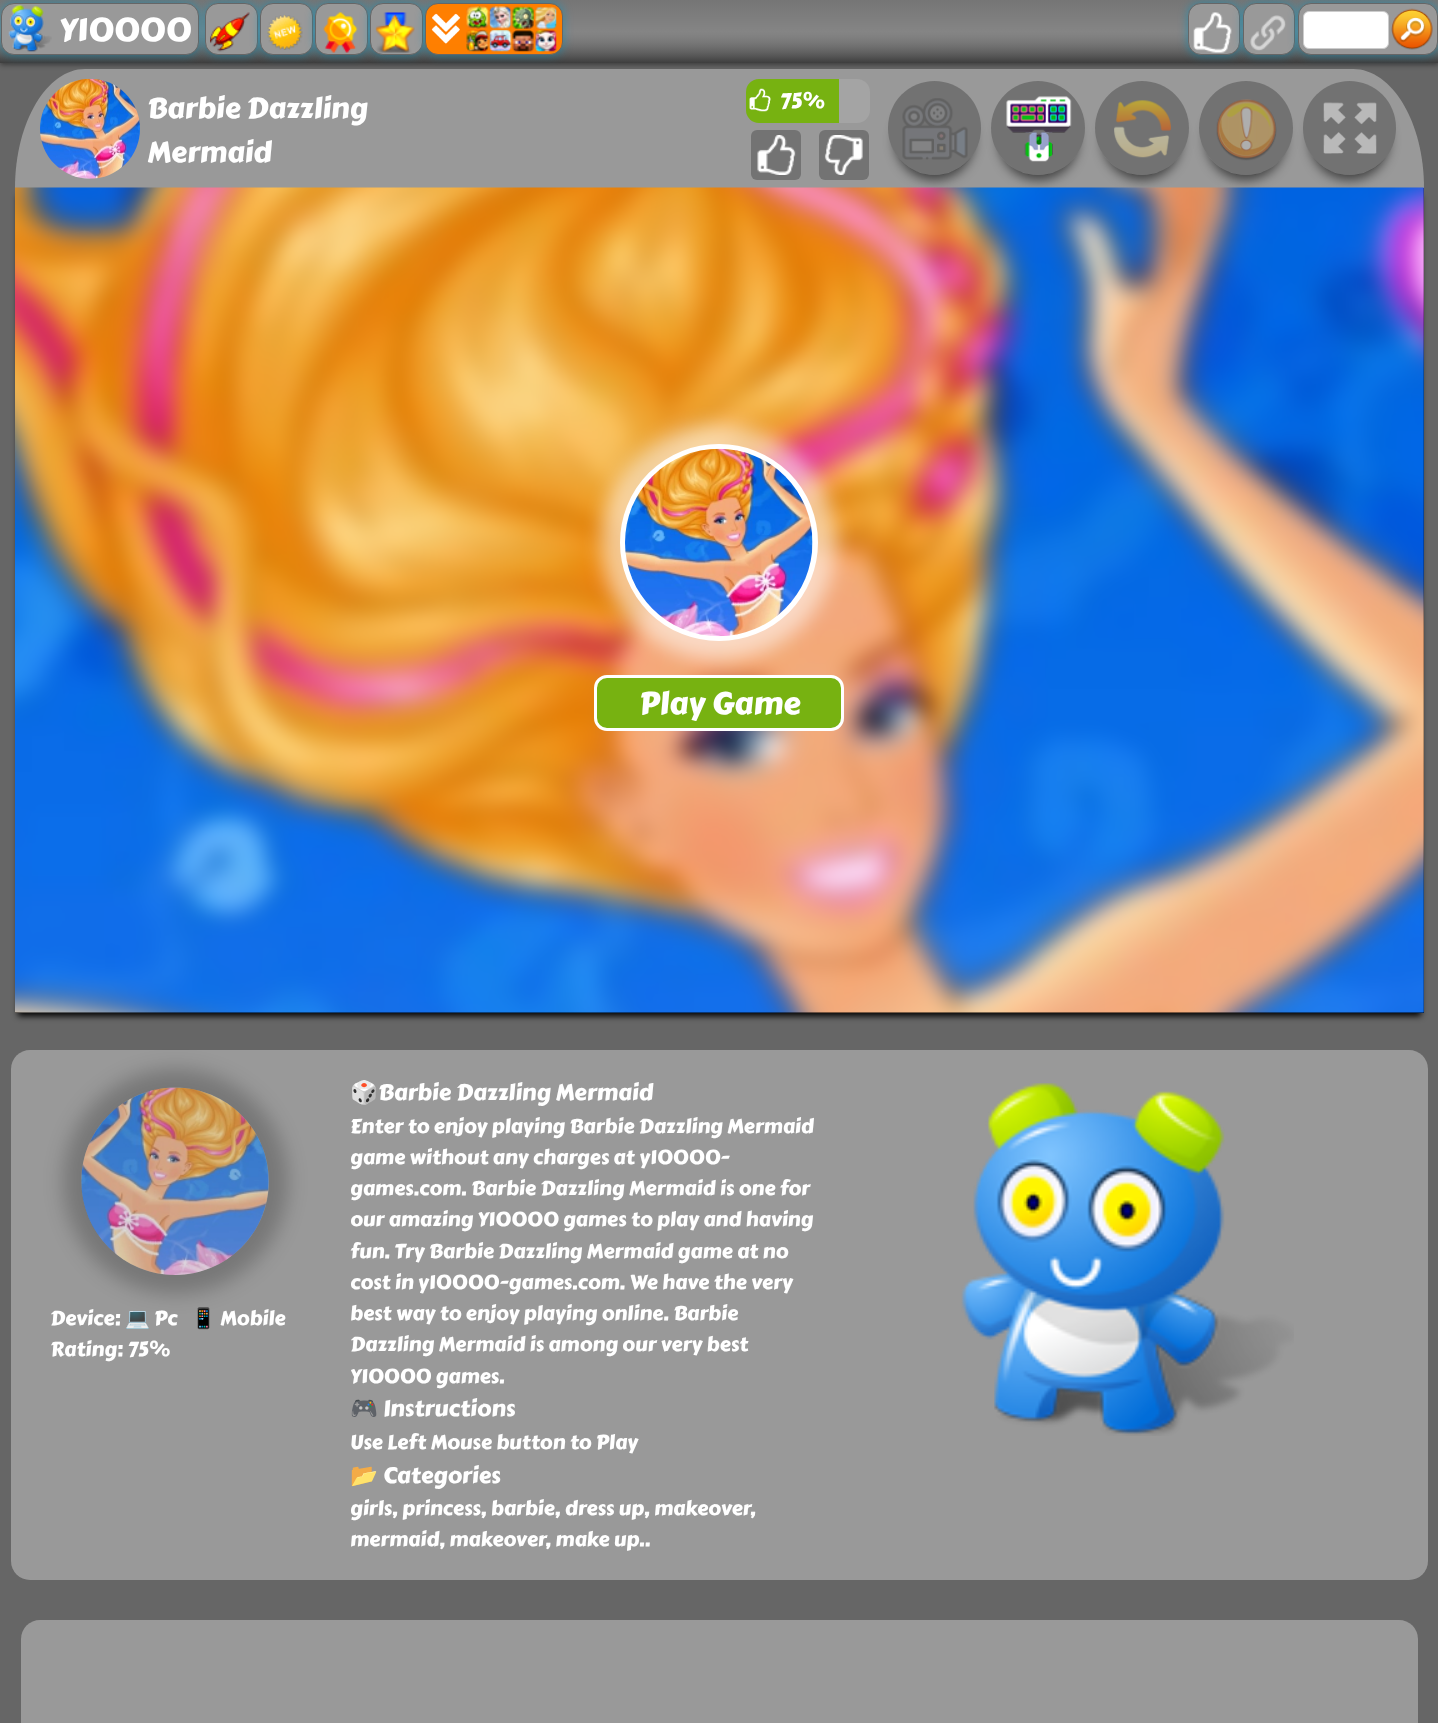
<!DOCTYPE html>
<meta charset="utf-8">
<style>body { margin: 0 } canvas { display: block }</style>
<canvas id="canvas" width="1438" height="1723"></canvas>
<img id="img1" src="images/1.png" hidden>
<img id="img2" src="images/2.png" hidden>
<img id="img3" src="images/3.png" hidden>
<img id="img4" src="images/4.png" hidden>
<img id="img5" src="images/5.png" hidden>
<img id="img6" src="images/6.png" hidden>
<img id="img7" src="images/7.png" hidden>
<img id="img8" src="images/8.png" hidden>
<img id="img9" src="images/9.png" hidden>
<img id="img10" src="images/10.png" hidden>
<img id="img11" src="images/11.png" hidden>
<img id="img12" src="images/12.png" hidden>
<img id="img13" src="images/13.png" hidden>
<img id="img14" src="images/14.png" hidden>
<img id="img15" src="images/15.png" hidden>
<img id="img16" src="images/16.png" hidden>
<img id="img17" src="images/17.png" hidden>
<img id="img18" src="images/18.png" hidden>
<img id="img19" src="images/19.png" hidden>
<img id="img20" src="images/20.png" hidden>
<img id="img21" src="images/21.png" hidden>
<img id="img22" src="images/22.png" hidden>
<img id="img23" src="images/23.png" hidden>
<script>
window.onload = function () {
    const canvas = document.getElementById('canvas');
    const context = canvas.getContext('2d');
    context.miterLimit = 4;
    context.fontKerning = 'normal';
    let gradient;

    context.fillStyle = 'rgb(102, 102, 102)';
    context.fillRect(0, 0, 1438, 1723);
    context.save();
    context.beginPath();
    context.moveTo(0, 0);
    context.lineTo(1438, 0);
    context.lineTo(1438, 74);
    context.lineTo(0, 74);
    context.closePath();
    context.moveTo(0, 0);
    context.lineTo(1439, 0);
    context.lineTo(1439, 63);
    context.lineTo(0, 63);
    context.closePath();
    context.clip('evenodd');
    context.fillStyle = 'rgba(0, 0, 0, 0.4)';
    context.filter = 'blur(2.5px)';
    context.beginPath();
    context.rect(0, 3, 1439, 62);
    context.fill();
    context.filter = 'none';
    context.restore();
    gradient = context.createLinearGradient(719, 0, 719, 63);
    gradient.addColorStop(0, 'rgba(255, 255, 255, 0.1)');
    gradient.addColorStop(0.5, 'rgba(255, 255, 255, 0.2)');
    gradient.addColorStop(1, 'rgba(0, 0, 0, 0.4)');
    context.fillStyle = gradient;
    context.fillRect(0, 0, 1438, 63);
    context.fillStyle = 'rgba(0, 146, 191, 0.6)';
    context.filter = 'blur(5px)';
    context.beginPath();
    context.roundRect(1, 3, 198, 52, 13);
    context.fill();
    context.filter = 'none';
    context.fillStyle = 'rgb(153, 153, 153)';
    context.beginPath();
    context.roundRect(1.5, 3.5, 197, 51, 12.5);
    context.fill();
    context.strokeStyle = 'rgb(102, 102, 102)';
    context.stroke();
    context.drawImage(document.getElementById('img1'), 8, 5, 44, 47);
    context.fillStyle = 'rgba(0, 146, 191, 0.6)';
    context.filter = 'blur(5px)';
    context.beginPath();
    context.roundRect(205, 3, 53, 52, 13);
    context.fill();
    context.filter = 'none';
    context.fillStyle = 'rgb(153, 153, 153)';
    context.beginPath();
    context.roundRect(205.5, 3.5, 52, 51, 12.5);
    context.fill();
    context.stroke();
    context.drawImage(document.getElementById('img2'), 210, 12, 40, 40);
    context.fillStyle = 'rgba(0, 146, 191, 0.6)';
    context.filter = 'blur(5px)';
    context.beginPath();
    context.roundRect(260, 3, 53, 52, 13);
    context.fill();
    context.filter = 'none';
    context.fillStyle = 'rgb(153, 153, 153)';
    context.beginPath();
    context.roundRect(260.5, 3.5, 52, 51, 12.5);
    context.fill();
    context.stroke();
    context.drawImage(document.getElementById('img3'), 267, 15, 36, 35);
    context.fillStyle = 'rgba(0, 146, 191, 0.6)';
    context.filter = 'blur(5px)';
    context.beginPath();
    context.roundRect(315, 3, 53, 52, 13);
    context.fill();
    context.filter = 'none';
    context.fillStyle = 'rgb(153, 153, 153)';
    context.beginPath();
    context.roundRect(315.5, 3.5, 52, 51, 12.5);
    context.fill();
    context.stroke();
    context.drawImage(document.getElementById('img4'), 323, 12, 35, 41);
    context.fillStyle = 'rgba(0, 146, 191, 0.6)';
    context.filter = 'blur(5px)';
    context.beginPath();
    context.roundRect(370, 3, 53, 52, 13);
    context.fill();
    context.filter = 'none';
    context.fillStyle = 'rgb(153, 153, 153)';
    context.beginPath();
    context.roundRect(370.5, 3.5, 52, 51, 12.5);
    context.fill();
    context.stroke();
    context.drawImage(document.getElementById('img5'), 375, 12, 40, 41);
    context.fillStyle = 'rgba(0, 146, 191, 0.6)';
    context.filter = 'blur(5px)';
    context.beginPath();
    context.roundRect(425, 3, 138, 52, 13);
    context.fill();
    context.filter = 'none';
    context.fillStyle = 'rgb(254, 127, 0)';
    context.beginPath();
    context.roundRect(425.5, 3.5, 137, 51, 12.5);
    context.fill();
    context.stroke();
    context.drawImage(document.getElementById('img6'), 431, 13, 30, 31);
    context.drawImage(document.getElementById('img7'), 466, 6, 91, 46);
    context.fillStyle = 'rgba(0, 146, 191, 0.6)';
    context.filter = 'blur(5px)';
    context.beginPath();
    context.roundRect(1188, 3, 52, 52, 13);
    context.fill();
    context.filter = 'none';
    context.fillStyle = 'rgb(153, 153, 153)';
    context.beginPath();
    context.roundRect(1188.5, 3.5, 51, 51, 12.5);
    context.fill();
    context.stroke();
    context.drawImage(document.getElementById('img8'), 1193, 12, 39, 41);
    context.fillStyle = 'rgba(0, 146, 191, 0.6)';
    context.filter = 'blur(5px)';
    context.beginPath();
    context.roundRect(1243, 3, 52, 52, 13);
    context.fill();
    context.filter = 'none';
    context.fillStyle = 'rgb(153, 153, 153)';
    context.beginPath();
    context.roundRect(1243.5, 3.5, 51, 51, 12.5);
    context.fill();
    context.stroke();
    context.drawImage(document.getElementById('img9'), 1250, 15, 36, 36);
    context.fillStyle = 'rgba(0, 146, 191, 0.6)';
    context.filter = 'blur(5px)';
    context.beginPath();
    context.roundRect(1298, 3, 140, 52, 13);
    context.fill();
    context.filter = 'none';
    context.fillStyle = 'rgb(153, 153, 153)';
    context.beginPath();
    context.roundRect(1298.5, 3.5, 139, 51, 12.5);
    context.fill();
    context.stroke();
    context.fillStyle = 'rgb(255, 255, 255)';
    context.beginPath();
    context.roundRect(1303.5, 11.5, 85, 37, 5.5);
    context.fill();
    context.strokeStyle = 'rgb(204, 204, 204)';
    context.stroke();
    context.drawImage(document.getElementById('img10'), 1391, 8, 42, 42);
    context.fillStyle = 'rgb(153, 153, 153)';
    context.beginPath();
    context.moveTo(85, 69);
    context.lineTo(1353, 69);
    context.bezierCurveTo(1392, 69, 1424, 122, 1424, 188);
    context.lineTo(15, 188);
    context.bezierCurveTo(15, 122, 47, 69, 85, 69);
    context.closePath();
    context.fill();
    context.drawImage(document.getElementById('img11'), 40, 78, 100, 101);
    context.fillStyle = 'rgb(119, 178, 17)';
    context.beginPath();
    context.roundRect(746, 79, 93, 44, [13, 0, 0, 13]);
    context.fill();
    context.drawImage(document.getElementById('img12'), 749, 88, 22, 24);
    context.fillStyle = 'rgb(164, 164, 164)';
    context.beginPath();
    context.roundRect(839, 79, 31, 44, [0, 13, 13, 0]);
    context.fill();
    context.fillStyle = 'rgb(115, 115, 115)';
    context.beginPath();
    context.roundRect(751, 130, 50, 50, 6);
    context.fill();
    context.drawImage(document.getElementById('img13'), 757, 135, 39, 40);
    context.beginPath();
    context.roundRect(819, 130, 50, 50, 6);
    context.fill();
    context.drawImage(document.getElementById('img14'), 824, 135, 39, 40);
    context.save();
    context.beginPath();
    context.moveTo(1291, 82);
    context.lineTo(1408, 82);
    context.lineTo(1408, 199);
    context.lineTo(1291, 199);
    context.closePath();
    context.moveTo(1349.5, 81);
    context.bezierCurveTo(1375, 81, 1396, 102, 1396, 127.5);
    context.lineTo(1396, 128.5);
    context.bezierCurveTo(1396, 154, 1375, 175, 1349.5, 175);
    context.bezierCurveTo(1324, 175, 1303, 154, 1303, 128.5);
    context.lineTo(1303, 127.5);
    context.bezierCurveTo(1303, 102, 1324, 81, 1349.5, 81);
    context.closePath();
    context.clip('evenodd');
    context.fillStyle = 'rgba(0, 0, 0, 0.6)';
    context.filter = 'blur(6px)';
    context.beginPath();
    context.roundRect(1310, 101, 79, 79, 39.5);
    context.fill();
    context.filter = 'none';
    context.restore();
    context.fillStyle = 'rgba(0, 0, 0, 0.25)';
    context.beginPath();
    context.roundRect(1303, 81, 93, 94, 46.5);
    context.fill();
    context.save();
    context.beginPath();
    context.moveTo(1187, 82);
    context.lineTo(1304, 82);
    context.lineTo(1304, 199);
    context.lineTo(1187, 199);
    context.closePath();
    context.moveTo(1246, 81);
    context.bezierCurveTo(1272, 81, 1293, 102, 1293, 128);
    context.bezierCurveTo(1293, 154, 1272, 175, 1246, 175);
    context.bezierCurveTo(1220, 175, 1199, 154, 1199, 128);
    context.bezierCurveTo(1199, 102, 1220, 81, 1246, 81);
    context.closePath();
    context.clip('evenodd');
    context.fillStyle = 'rgba(0, 0, 0, 0.6)';
    context.filter = 'blur(6px)';
    context.beginPath();
    context.roundRect(1206, 101, 79, 79, 39.5);
    context.fill();
    context.filter = 'none';
    context.restore();
    context.beginPath();
    context.arc(1246, 128, 47, 0, 2 * Math.PI);
    context.fill();
    context.save();
    context.beginPath();
    context.moveTo(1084, 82);
    context.lineTo(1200, 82);
    context.lineTo(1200, 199);
    context.lineTo(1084, 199);
    context.closePath();
    context.moveTo(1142, 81);
    context.bezierCurveTo(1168, 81, 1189, 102, 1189, 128);
    context.bezierCurveTo(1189, 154, 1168, 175, 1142, 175);
    context.bezierCurveTo(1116, 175, 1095, 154, 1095, 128);
    context.bezierCurveTo(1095, 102, 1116, 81, 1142, 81);
    context.closePath();
    context.clip('evenodd');
    context.fillStyle = 'rgba(0, 0, 0, 0.6)';
    context.filter = 'blur(6px)';
    context.beginPath();
    context.roundRect(1103, 101, 78, 79, 39);
    context.fill();
    context.filter = 'none';
    context.restore();
    context.beginPath();
    context.arc(1142, 128, 47, 0, 2 * Math.PI);
    context.fill();
    context.save();
    context.beginPath();
    context.moveTo(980, 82);
    context.lineTo(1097, 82);
    context.lineTo(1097, 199);
    context.lineTo(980, 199);
    context.closePath();
    context.moveTo(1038, 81);
    context.bezierCurveTo(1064, 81, 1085, 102, 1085, 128);
    context.bezierCurveTo(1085, 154, 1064, 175, 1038, 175);
    context.bezierCurveTo(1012, 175, 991, 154, 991, 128);
    context.bezierCurveTo(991, 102, 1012, 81, 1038, 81);
    context.closePath();
    context.clip('evenodd');
    context.fillStyle = 'rgba(0, 0, 0, 0.6)';
    context.filter = 'blur(6px)';
    context.beginPath();
    context.roundRect(999, 101, 79, 79, 39.5);
    context.fill();
    context.filter = 'none';
    context.restore();
    context.beginPath();
    context.arc(1038, 128, 47, 0, 2 * Math.PI);
    context.fill();
    context.save();
    context.beginPath();
    context.moveTo(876, 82);
    context.lineTo(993, 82);
    context.lineTo(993, 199);
    context.lineTo(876, 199);
    context.closePath();
    context.moveTo(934.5, 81);
    context.bezierCurveTo(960, 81, 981, 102, 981, 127.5);
    context.lineTo(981, 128.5);
    context.bezierCurveTo(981, 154, 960, 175, 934.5, 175);
    context.bezierCurveTo(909, 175, 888, 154, 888, 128.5);
    context.lineTo(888, 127.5);
    context.bezierCurveTo(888, 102, 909, 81, 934.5, 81);
    context.closePath();
    context.clip('evenodd');
    context.fillStyle = 'rgba(0, 0, 0, 0.6)';
    context.filter = 'blur(6px)';
    context.beginPath();
    context.roundRect(895, 101, 79, 79, 39.5);
    context.fill();
    context.filter = 'none';
    context.restore();
    context.beginPath();
    context.roundRect(888, 81, 93, 94, 46.5);
    context.fill();
    context.drawImage(document.getElementById('img15'), 902, 98, 66, 62);
    context.drawImage(document.getElementById('img16'), 1006, 96, 66, 66);
    context.drawImage(document.getElementById('img17'), 1114, 100, 57, 58);
    context.drawImage(document.getElementById('img18'), 1216, 99, 61, 62);
    context.drawImage(document.getElementById('img19'), 1323, 102, 54, 52);
    context.fillStyle = 'rgb(0, 0, 0)';
    context.filter = 'blur(3px)';
    context.beginPath();
    context.rect(18, 196, 1403, 820);
    context.fill();
    context.filter = 'none';
    context.fillRect(15, 188, 1409, 825);
    context.drawImage(document.getElementById('img20'), 15, 187, 1409, 826);
    context.fillStyle = 'rgba(255, 255, 255, 0.55)';
    context.filter = 'blur(9.5px)';
    context.beginPath();
    context.roundRect(601, 425, 235, 235, 117.5);
    context.fill();
    context.filter = 'none';
    context.fillStyle = 'rgb(255, 255, 255)';
    context.beginPath();
    context.roundRect(622.5, 446.5, 193, 192, 96);
    context.fill();
    context.strokeStyle = 'rgb(255, 255, 255)';
    context.lineWidth = 5;
    context.stroke();
    context.drawImage(document.getElementById('img21'), 625, 448, 188, 189);
    context.fillStyle = 'rgb(119, 178, 17)';
    context.beginPath();
    context.roundRect(595.5, 676.5, 247, 53, 11.5);
    context.fill();
    context.lineWidth = 3;
    context.stroke();
    context.fillStyle = 'rgb(153, 153, 153)';
    context.beginPath();
    context.roundRect(11, 1050, 1417, 530, 19);
    context.fill();
    context.save();
    context.beginPath();
    context.moveTo(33, 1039);
    context.lineTo(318, 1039);
    context.lineTo(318, 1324);
    context.lineTo(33, 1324);
    context.closePath();
    context.moveTo(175, 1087.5);
    context.bezierCurveTo(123.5, 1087.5, 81.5, 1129.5, 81.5, 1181);
    context.bezierCurveTo(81.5, 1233, 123.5, 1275, 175, 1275);
    context.bezierCurveTo(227, 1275, 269, 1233, 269, 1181);
    context.bezierCurveTo(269, 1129.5, 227, 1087.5, 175, 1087.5);
    context.closePath();
    context.clip('evenodd');
    context.fillStyle = 'rgba(0, 0, 0, 0.22)';
    context.filter = 'blur(9.5px)';
    context.beginPath();
    context.roundRect(63, 1069, 225, 225, 112.5);
    context.fill();
    context.filter = 'none';
    context.restore();
    context.drawImage(document.getElementById('img22'), 81, 1087, 188, 188);
    context.drawImage(document.getElementById('img23'), 961, 1083, 333, 353);
    context.beginPath();
    context.roundRect(21, 1620, 1397, 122, 19);
    context.fill();
    context.font = '32.5px Carter One';
    context.fillStyle = 'rgb(255, 255, 255)';
    context.fillText('Y10000', 59, 41);
    context.font = '28.75px Carter One';
    context.fillText('Barbie Dazzling', 147, 118);
    context.fillText('Mermaid', 147, 162);
    context.font = '21px Carter One';
    context.fillText('75%', 780, 108);
    context.font = '31.25px Carter One';
    context.fillText('Play Game', 639, 714);
    context.font = '20px Carter One';
    context.fillText('Device:', 50, 1325);
    context.font = '20px Noto Color Emoji';
    context.fillText('💻', 125, 1325);
    context.font = '20px Carter One';
    context.fillText('Pc', 154, 1325);
    context.font = '20px Noto Color Emoji';
    context.fillText('📱', 191, 1325);
    context.font = '20px Carter One';
    context.fillText('Mobile', 220, 1325);
    context.fillText('Rating: 75%', 50, 1356);
    context.font = '22.5px Noto Color Emoji';
    context.fillText('🎲', 350, 1100);
    context.font = '22.5px Carter One';
    context.fillText('Barbie Dazzling Mermaid', 378, 1100);
    context.font = '20px Carter One';
    context.fillText('Enter to enjoy playing Barbie Dazzling Mermaid', 350, 1133);
    context.fillText('game without any charges at y10000-', 350, 1164);
    context.fillText('games.com. Barbie Dazzling Mermaid is one for', 350, 1195);
    context.fillText('our amazing Y10000 games to play and having', 350, 1226);
    context.fillText('fun. Try Barbie Dazzling Mermaid game at no', 350, 1258);
    context.fillText('cost in y10000-games.com. We have the very', 350, 1289);
    context.fillText('best way to enjoy playing online. Barbie', 350, 1320);
    context.fillText('Dazzling Mermaid is among our very best', 350, 1351);
    context.fillText('Y10000 games.', 350, 1383);
    context.font = '22.5px Noto Color Emoji';
    context.fillText('🎮', 350, 1416);
    context.font = '22.5px Carter One';
    context.fillText('Instructions', 383, 1416);
    context.font = '20px Carter One';
    context.fillText('Use Left Mouse button to Play', 350, 1449);
    context.font = '22.5px Noto Color Emoji';
    context.fillText('📂', 350, 1483);
    context.font = '22.5px Carter One';
    context.fillText('Categories', 383, 1483);
    context.font = '20px Carter One';
    context.fillText('girls, princess, barbie, dress up, makeover,', 350, 1515);
    context.fillText('mermaid, makeover, make up..', 350, 1546);
};
</script>
